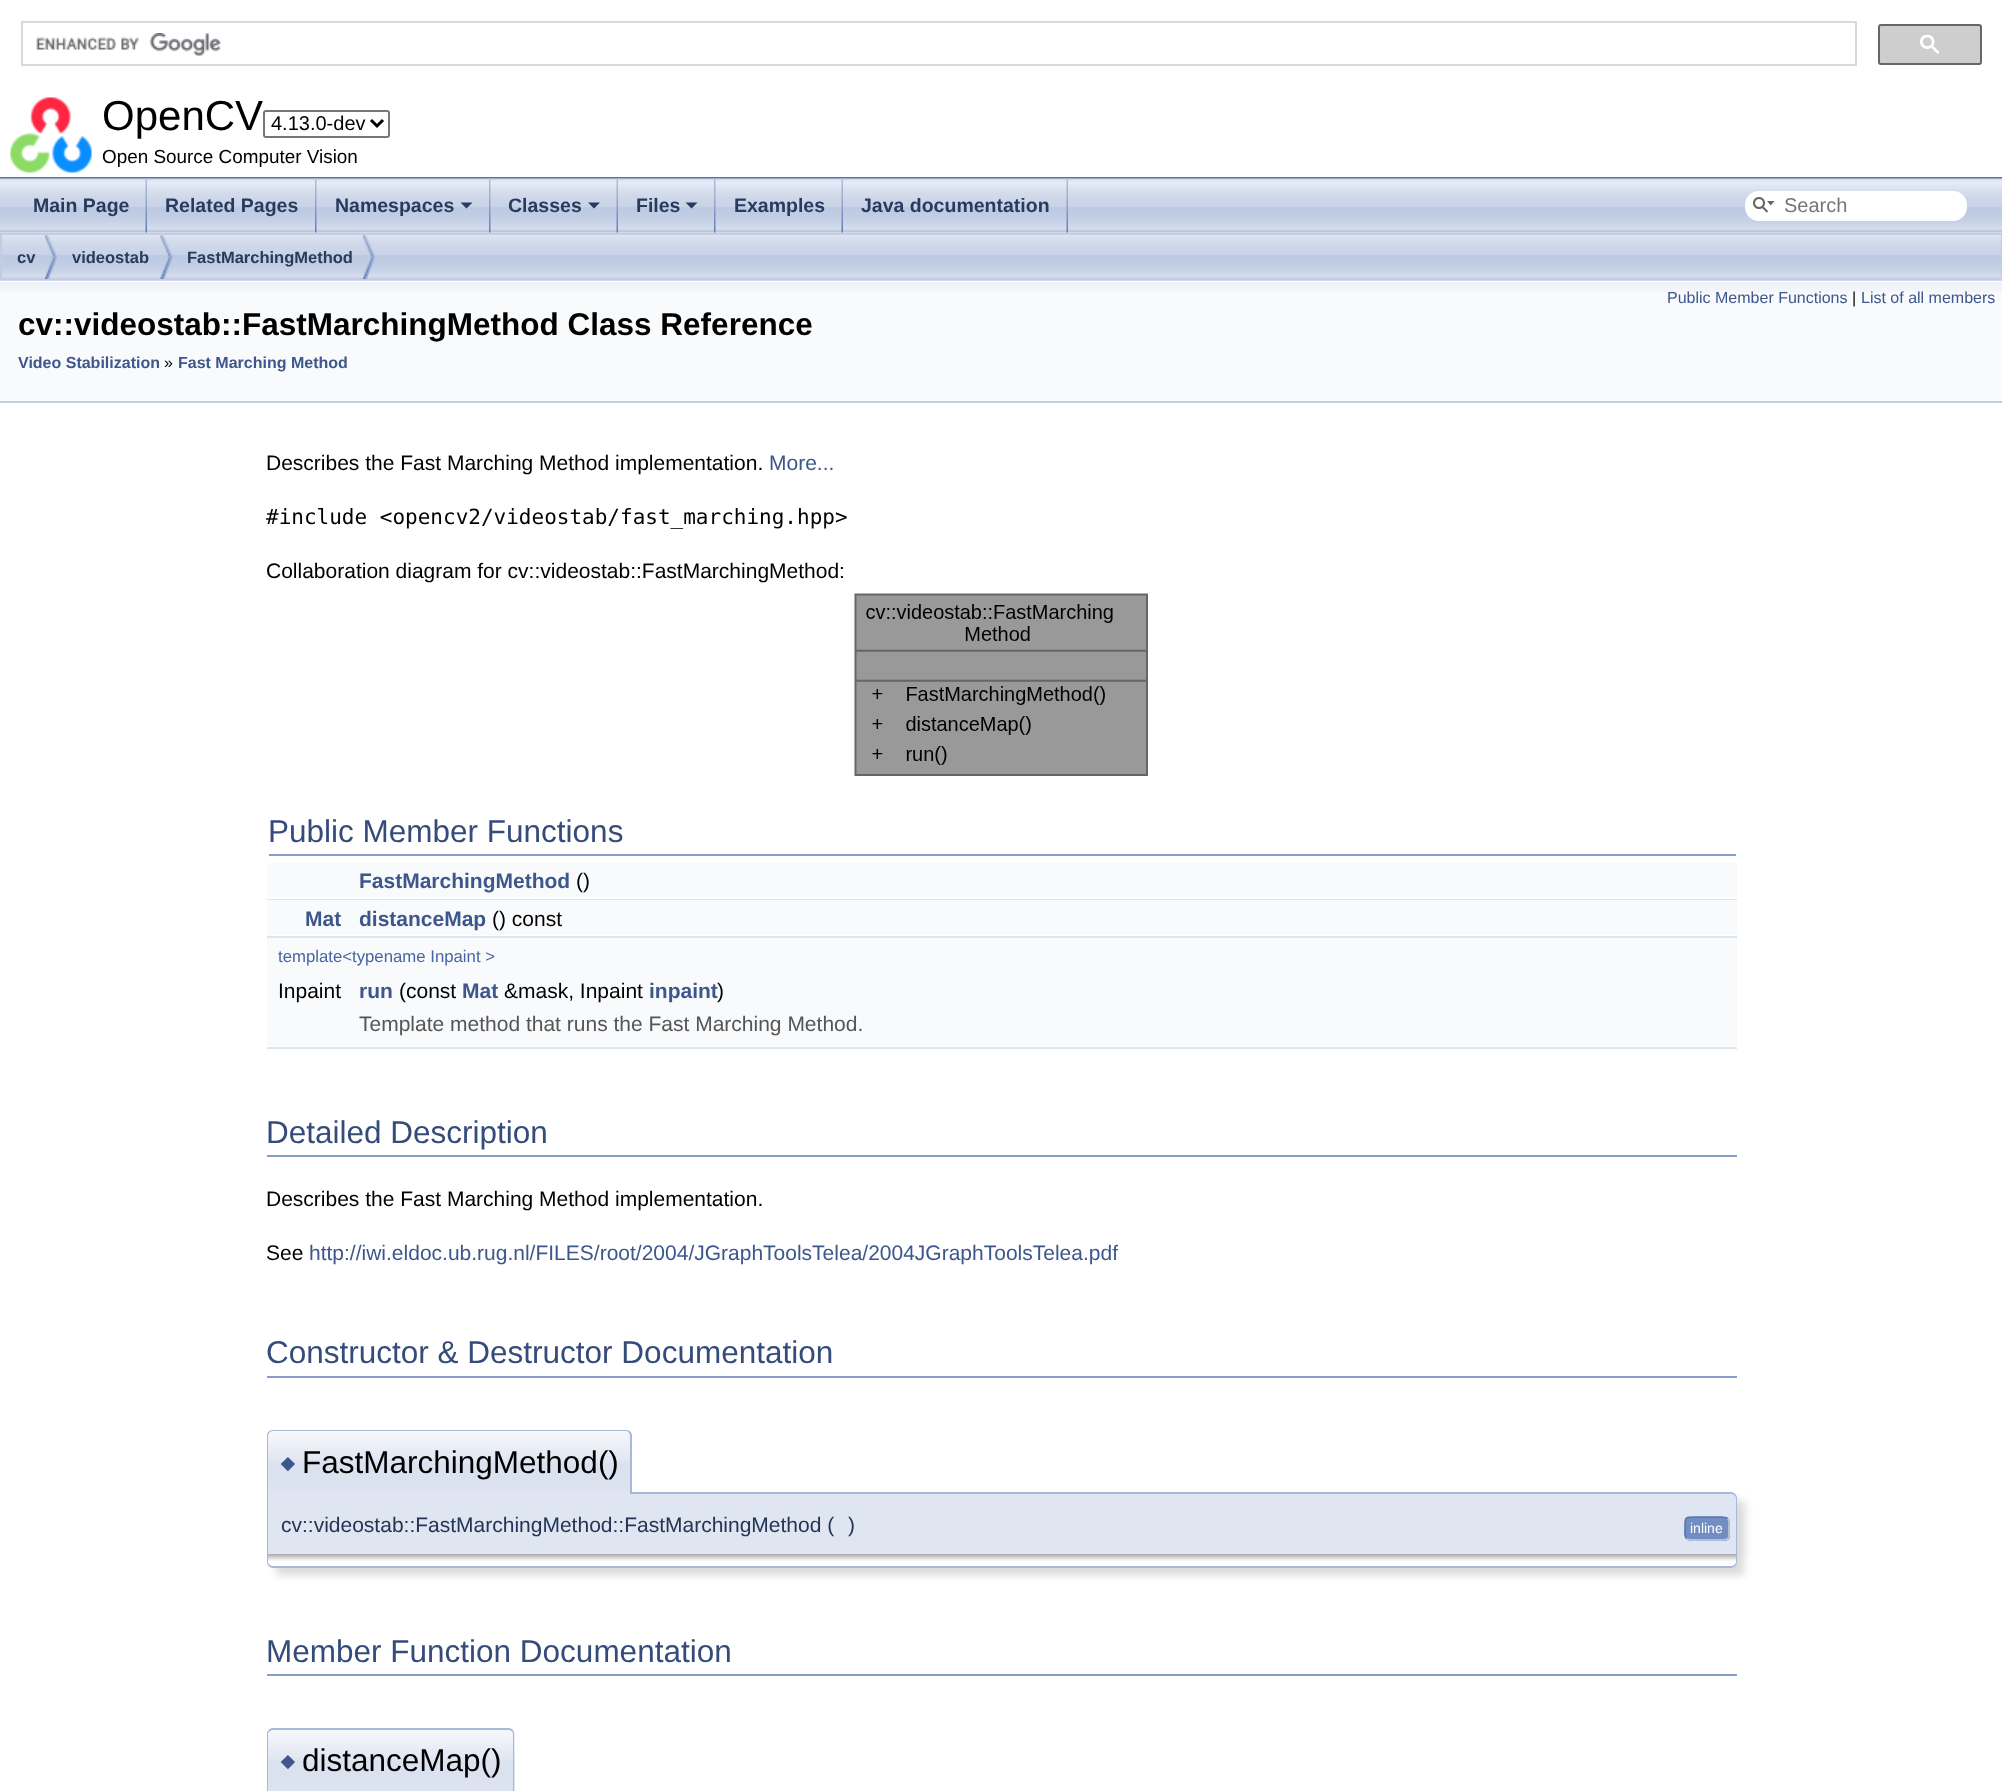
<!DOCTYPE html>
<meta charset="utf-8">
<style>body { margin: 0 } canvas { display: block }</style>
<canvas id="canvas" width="2002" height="1791"></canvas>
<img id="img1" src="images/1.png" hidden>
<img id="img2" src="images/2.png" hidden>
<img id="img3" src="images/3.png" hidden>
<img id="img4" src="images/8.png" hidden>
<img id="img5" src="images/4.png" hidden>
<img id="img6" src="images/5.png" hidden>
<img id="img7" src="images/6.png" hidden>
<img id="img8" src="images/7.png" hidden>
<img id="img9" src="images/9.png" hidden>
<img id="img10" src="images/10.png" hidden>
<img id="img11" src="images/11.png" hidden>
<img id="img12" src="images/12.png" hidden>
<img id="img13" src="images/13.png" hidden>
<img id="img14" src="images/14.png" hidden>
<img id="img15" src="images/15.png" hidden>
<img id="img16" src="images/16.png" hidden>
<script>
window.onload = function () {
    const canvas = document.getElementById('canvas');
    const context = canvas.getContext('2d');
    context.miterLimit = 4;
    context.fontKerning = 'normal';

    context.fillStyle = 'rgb(255, 255, 255)';
    context.fillRect(0, 0, 2002, 1791);
    context.fillStyle = 'rgb(83, 115, 180)';
    context.fillRect(0, 177, 2002, 2);
    context.strokeStyle = 'rgb(217, 217, 217)';
    context.lineWidth = 2;
    context.strokeRect(22, 22, 1834, 43);
    context.drawImage(document.getElementById('img1'), 36, 33, 185, 23);
    context.fillStyle = 'rgb(206, 206, 206)';
    context.beginPath();
    context.roundRect(1879, 25, 102, 39, 2);
    context.fill();
    context.strokeStyle = 'rgb(102, 102, 102)';
    context.stroke();
    context.drawImage(document.getElementById('img2'), 1920, 35, 20, 19);
    context.drawImage(document.getElementById('img3'), 10, 97, 82, 76);
    context.beginPath();
    context.roundRect(264, 111, 125, 26, 2);
    context.strokeStyle = 'rgb(118, 118, 118)';
    context.stroke();
    context.beginPath();
    context.moveTo(371, 120);
    context.lineTo(377, 126);
    context.lineTo(383, 120);
    context.strokeStyle = 'rgb(0, 0, 0)';
    context.lineWidth = 3;
    context.stroke();
    context.drawImage(document.getElementById('img4'), 0, 232, 2002, 47);
    context.drawImage(document.getElementById('img5'), 0, 178, 2002, 55);
    context.drawImage(document.getElementById('img6'), 145, 178, 2, 55);
    context.drawImage(document.getElementById('img7'), 315, 178, 2, 55);
    context.drawImage(document.getElementById('img7'), 489, 178, 2, 55);
    context.fillStyle = 'rgb(40, 58, 93)';
    context.beginPath();
    context.moveTo(460.5, 202.5);
    context.lineTo(472.5, 202.5);
    context.lineTo(466.5, 208.5);
    context.closePath();
    context.fill();
    context.drawImage(document.getElementById('img6'), 616, 178, 2, 55);
    context.beginPath();
    context.moveTo(588, 202.5);
    context.lineTo(600, 202.5);
    context.lineTo(594, 208.5);
    context.closePath();
    context.fill();
    context.drawImage(document.getElementById('img7'), 714, 178, 2, 55);
    context.beginPath();
    context.moveTo(685.5, 202.5);
    context.lineTo(697.5, 202.5);
    context.lineTo(691.5, 208.5);
    context.closePath();
    context.fill();
    context.drawImage(document.getElementById('img6'), 841, 178, 2, 55);
    context.drawImage(document.getElementById('img6'), 1066, 178, 2, 55);
    context.fillStyle = 'rgb(255, 255, 255)';
    context.beginPath();
    context.roundRect(1745, 191, 222, 30, 14);
    context.fill();
    context.drawImage(document.getElementById('img8'), 1753, 197, 22, 16);
    context.strokeStyle = 'rgb(194, 205, 228)';
    context.lineWidth = 2;
    context.strokeRect(1, 234, 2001, 46);
    context.drawImage(document.getElementById('img9'), 45, 235, 12, 44);
    context.drawImage(document.getElementById('img10'), 160, 235, 13, 44);
    context.drawImage(document.getElementById('img11'), 363, 235, 12, 44);
    context.fillStyle = 'rgb(249, 250, 252)';
    context.fillRect(0, 292, 2002, 109);
    context.drawImage(document.getElementById('img12'), 0, 280, 2002, 12);
    context.fillStyle = 'rgb(196, 207, 229)';
    context.fillRect(0, 401, 2002, 2);
    context.drawImage(document.getElementById('img13'), 854, 593, 294, 183);
    context.fillStyle = 'rgb(135, 158, 203)';
    context.fillRect(269, 854, 1467, 2);
    context.fillStyle = 'rgb(249, 250, 252)';
    context.fillRect(267, 863, 1470, 34);
    context.fillStyle = 'rgb(222, 228, 240)';
    context.fillRect(267, 899, 1470, 1);
    context.fillStyle = 'rgb(249, 250, 252)';
    context.fillRect(267, 900, 1470, 35);
    context.fillStyle = 'rgb(222, 228, 240)';
    context.fillRect(267, 936, 1470, 2);
    context.fillStyle = 'rgb(249, 250, 252)';
    context.fillRect(267, 938, 1470, 34);
    context.fillRect(267, 972, 1470, 35);
    context.fillRect(267, 1007, 1470, 39);
    context.fillStyle = 'rgb(222, 228, 240)';
    context.fillRect(267, 1047, 1470, 2);
    context.fillStyle = 'rgb(135, 158, 203)';
    context.fillRect(267, 1155, 1470, 2);
    context.fillRect(267, 1376, 1470, 2);
    context.fillStyle = 'rgba(0, 0, 0, 0.15)';
    context.filter = 'blur(4px)';
    context.beginPath();
    context.roundRect(275, 1500, 1470, 62, 6);
    context.fill();
    context.filter = 'none';
    context.fillStyle = 'rgb(223, 229, 241)';
    context.beginPath();
    context.roundRect(267, 1493, 1470, 61, [0, 6, 0, 0]);
    context.fill();
    context.fillStyle = 'rgb(168, 184, 217)';
    context.beginPath();
    context.moveTo(267, 1492);
    context.lineTo(1731, 1492);
    context.bezierCurveTo(1734, 1492, 1737, 1495, 1737, 1498);
    context.lineTo(1737, 1554);
    context.lineTo(267, 1554);
    context.closePath();
    context.moveTo(268, 1494);
    context.lineTo(1731, 1494);
    context.bezierCurveTo(1733, 1494, 1736, 1496, 1736, 1498);
    context.lineTo(1736, 1554);
    context.lineTo(268, 1554);
    context.closePath();
    context.fill('evenodd');
    context.fillStyle = 'rgb(226, 232, 242)';
    context.beginPath();
    context.roundRect(267, 1430, 365, 64, [6, 6, 0, 0]);
    context.fill();
    context.drawImage(document.getElementById('img14'), 267, 1431, 365, 62);
    context.fillStyle = 'rgb(168, 184, 217)';
    context.beginPath();
    context.moveTo(273, 1430);
    context.lineTo(626, 1430);
    context.bezierCurveTo(629, 1430, 632, 1432, 632, 1436);
    context.lineTo(632, 1494);
    context.lineTo(267, 1494);
    context.lineTo(267, 1436);
    context.bezierCurveTo(267, 1432, 270, 1430, 273, 1430);
    context.closePath();
    context.moveTo(273, 1431);
    context.lineTo(626, 1431);
    context.bezierCurveTo(628, 1431, 630, 1433, 630, 1436);
    context.lineTo(630, 1494);
    context.lineTo(268, 1494);
    context.lineTo(268, 1436);
    context.bezierCurveTo(268, 1433, 271, 1431, 273, 1431);
    context.closePath();
    context.fill('evenodd');
    context.fillStyle = 'rgb(114, 141, 193)';
    context.beginPath();
    context.roundRect(1685, 1517, 45, 24, 5);
    context.fill();
    context.beginPath();
    context.moveTo(1727.5, 1518.5);
    context.bezierCurveTo(1730, 1520.5, 1729, 1525.5, 1729, 1528.5);
    context.bezierCurveTo(1729, 1539.5, 1730, 1540, 1719, 1540);
    context.lineTo(1695, 1540);
    context.bezierCurveTo(1693, 1540, 1688.5, 1540.5, 1686.5, 1538.5);
    context.strokeStyle = 'rgb(196, 207, 229)';
    context.lineWidth = 1.5;
    context.stroke();
    context.beginPath();
    context.moveTo(1686.5, 1538.5);
    context.bezierCurveTo(1684, 1536.5, 1685, 1531.5, 1685, 1528.5);
    context.bezierCurveTo(1685, 1517.5, 1684, 1517, 1695, 1517);
    context.lineTo(1719, 1517);
    context.bezierCurveTo(1721, 1517, 1725.5, 1516.5, 1727.5, 1518.5);
    context.strokeStyle = 'rgb(83, 115, 180)';
    context.stroke();
    context.fillStyle = 'rgba(0, 0, 0, 0.15)';
    context.filter = 'blur(4px)';
    context.beginPath();
    context.roundRect(275, 1562, 1470, 13, 6);
    context.fill();
    context.filter = 'none';
    context.fillStyle = 'rgb(255, 255, 255)';
    context.beginPath();
    context.roundRect(267, 1554, 1470, 14, [0, 0, 6, 6]);
    context.fill();
    context.drawImage(document.getElementById('img15'), 268, 1554, 1468, 7);
    context.fillStyle = 'rgb(168, 184, 217)';
    context.beginPath();
    context.moveTo(267, 1554);
    context.lineTo(1737, 1554);
    context.lineTo(1737, 1562);
    context.bezierCurveTo(1737, 1565, 1734, 1568, 1731, 1568);
    context.lineTo(273, 1568);
    context.bezierCurveTo(270, 1568, 267, 1565, 267, 1562);
    context.closePath();
    context.moveTo(268, 1554);
    context.lineTo(1736, 1554);
    context.lineTo(1736, 1562);
    context.bezierCurveTo(1736, 1564, 1733, 1566, 1731, 1566);
    context.lineTo(273, 1566);
    context.bezierCurveTo(271, 1566, 268, 1564, 268, 1562);
    context.closePath();
    context.fill('evenodd');
    context.fillStyle = 'rgb(135, 158, 203)';
    context.fillRect(267, 1674, 1470, 2);
    context.fillStyle = 'rgb(226, 232, 242)';
    context.beginPath();
    context.roundRect(267, 1728, 248, 63, [6, 6, 0, 0]);
    context.fill();
    context.drawImage(document.getElementById('img16'), 267, 1729, 248, 62);
    context.fillStyle = 'rgb(168, 184, 217)';
    context.beginPath();
    context.moveTo(273, 1728);
    context.lineTo(508, 1728);
    context.bezierCurveTo(512, 1728, 514, 1731, 514, 1734);
    context.lineTo(514, 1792);
    context.lineTo(267, 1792);
    context.lineTo(267, 1734);
    context.bezierCurveTo(267, 1731, 270, 1728, 273, 1728);
    context.closePath();
    context.moveTo(273, 1730);
    context.lineTo(508, 1730);
    context.bezierCurveTo(511, 1730, 513, 1732, 513, 1734);
    context.lineTo(513, 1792);
    context.lineTo(268, 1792);
    context.lineTo(268, 1734);
    context.bezierCurveTo(268, 1732, 271, 1730, 273, 1730);
    context.closePath();
    context.fill('evenodd');
    context.font = '42px Liberation Sans';
    context.fillStyle = 'rgb(0, 0, 0)';
    context.fillText('OpenCV', 102, 130);
    context.font = '20px Liberation Sans';
    context.fillText('4.13.0-dev', 271, 130);
    context.font = '18.9px Liberation Sans';
    context.fillText('Open Source Computer Vision', 102, 163);
    context.font = 'bold 19.5px Liberation Sans';
    context.fillStyle = 'rgb(40, 58, 93)';
    context.fillText('Main Page', 33, 212);
    context.fillText('Related Pages', 165, 212);
    context.fillText('Namespaces', 335, 212);
    context.fillText('Classes', 508, 212);
    context.fillText('Files', 636, 212);
    context.fillText('Examples', 734, 212);
    context.fillText('Java documentation', 861, 212);
    context.font = '20px Liberation Sans';
    context.fillStyle = 'rgb(117, 117, 117)';
    context.fillText('Search', 1784, 212);
    context.font = 'bold 16.5px Liberation Sans';
    context.fillStyle = 'rgb(40, 58, 93)';
    context.fillText('cv', 17, 263);
    context.fillText('videostab', 72, 263);
    context.fillText('FastMarchingMethod', 187, 263);
    context.font = '16px Liberation Sans';
    context.fillStyle = 'rgb(61, 87, 140)';
    context.fillText('Public Member Functions', 1667, 303);
    context.fillStyle = 'rgb(0, 0, 0)';
    context.fillText('|', 1852, 303);
    context.fillStyle = 'rgb(61, 87, 140)';
    context.fillText('List of all members', 1861, 303);
    context.font = 'bold 31.5px Liberation Sans';
    context.fillStyle = 'rgb(0, 0, 0)';
    context.fillText('cv::videostab::FastMarchingMethod Class Reference', 18, 335);
    context.font = 'bold 16px Liberation Sans';
    context.fillStyle = 'rgb(61, 87, 140)';
    context.fillText('Video Stabilization', 18, 368);
    context.font = '16px Liberation Sans';
    context.fillStyle = 'rgb(0, 0, 0)';
    context.fillText('»', 164, 368);
    context.font = 'bold 16px Liberation Sans';
    context.fillStyle = 'rgb(61, 87, 140)';
    context.fillText('Fast Marching Method', 178, 368);
    context.font = '21px Liberation Sans';
    context.fillStyle = 'rgb(0, 0, 0)';
    context.fillText('Describes the Fast Marching Method implementation.', 266, 470);
    context.fillStyle = 'rgb(61, 87, 140)';
    context.fillText('More...', 769, 470);
    context.font = '21px DejaVu Sans Mono';
    context.fillStyle = 'rgb(0, 0, 0)';
    context.fillText('#include <opencv2/videostab/fast_marching.hpp>', 266, 524);
    context.font = '21px Liberation Sans';
    context.fillText('Collaboration diagram for cv::videostab::FastMarchingMethod:', 266, 578);
    context.font = '31.5px Liberation Sans';
    context.fillStyle = 'rgb(53, 76, 123)';
    context.fillText('Public Member Functions', 268, 842);
    context.font = 'bold 21px Liberation Sans';
    context.fillStyle = 'rgb(61, 87, 140)';
    context.fillText('FastMarchingMethod', 359, 888);
    context.font = '21px Liberation Sans';
    context.fillStyle = 'rgb(0, 0, 0)';
    context.fillText('()', 576, 888);
    context.font = 'bold 21px Liberation Sans';
    context.fillStyle = 'rgb(61, 87, 140)';
    context.fillText('Mat', 305, 926);
    context.fillText('distanceMap', 359, 926);
    context.font = '21px Liberation Sans';
    context.fillStyle = 'rgb(0, 0, 0)';
    context.fillText('() const', 492, 926);
    context.font = '16.75px Liberation Sans';
    context.fillStyle = 'rgb(70, 101, 162)';
    context.fillText('template<typename Inpaint >', 278, 962);
    context.font = '21px Liberation Sans';
    context.fillStyle = 'rgb(0, 0, 0)';
    context.fillText('Inpaint', 278, 998);
    context.font = 'bold 21px Liberation Sans';
    context.fillStyle = 'rgb(61, 87, 140)';
    context.fillText('run', 359, 998);
    context.font = '21px Liberation Sans';
    context.fillStyle = 'rgb(0, 0, 0)';
    context.fillText('(const', 399, 998);
    context.font = 'bold 21px Liberation Sans';
    context.fillStyle = 'rgb(61, 87, 140)';
    context.fillText('Mat', 462, 998);
    context.font = '21px Liberation Sans';
    context.fillStyle = 'rgb(0, 0, 0)';
    context.fillText('&mask, Inpaint', 504, 998);
    context.font = 'bold 21px Liberation Sans';
    context.fillStyle = 'rgb(61, 87, 140)';
    context.fillText('inpaint', 649, 998);
    context.font = '21px Liberation Sans';
    context.fillStyle = 'rgb(0, 0, 0)';
    context.fillText(')', 717, 998);
    context.fillStyle = 'rgb(85, 85, 85)';
    context.fillText('Template method that runs the Fast Marching Method.', 359, 1031);
    context.font = '31.5px Liberation Sans';
    context.fillStyle = 'rgb(53, 76, 123)';
    context.fillText('Detailed Description', 266, 1143);
    context.font = '21px Liberation Sans';
    context.fillStyle = 'rgb(0, 0, 0)';
    context.fillText('Describes the Fast Marching Method implementation.', 266, 1206);
    context.fillText('See', 266, 1260);
    context.fillStyle = 'rgb(61, 87, 140)';
    context.fillText('http://iwi.eldoc.ub.rug.nl/FILES/root/2004/JGraphToolsTelea/2004JGraphToolsTelea.pdf', 309, 1260);
    context.font = '31.5px Liberation Sans';
    context.fillStyle = 'rgb(53, 76, 123)';
    context.fillText('Constructor & Destructor Documentation', 266, 1363);
    context.font = '20px FreeSans';
    context.fillStyle = 'rgb(61, 87, 140)';
    context.fillText('◆', 280, 1471);
    context.font = '31.5px Liberation Sans';
    context.fillStyle = 'rgb(0, 0, 0)';
    context.fillText('FastMarchingMethod()', 302, 1473);
    context.font = '21px Liberation Sans';
    context.fillStyle = 'rgb(37, 53, 85)';
    context.fillText('cv::videostab::FastMarchingMethod::FastMarchingMethod (', 281, 1532);
    context.fillText(')', 848, 1532);
    context.font = '14px Liberation Sans';
    context.fillStyle = 'rgb(255, 255, 255)';
    context.fillText('inline', 1690, 1533);
    context.font = '31.5px Liberation Sans';
    context.fillStyle = 'rgb(53, 76, 123)';
    context.fillText('Member Function Documentation', 266, 1662);
    context.font = '20px FreeSans';
    context.fillStyle = 'rgb(61, 87, 140)';
    context.fillText('◆', 280, 1769);
    context.font = '31.5px Liberation Sans';
    context.fillStyle = 'rgb(0, 0, 0)';
    context.fillText('distanceMap()', 302, 1771);
};
</script>
